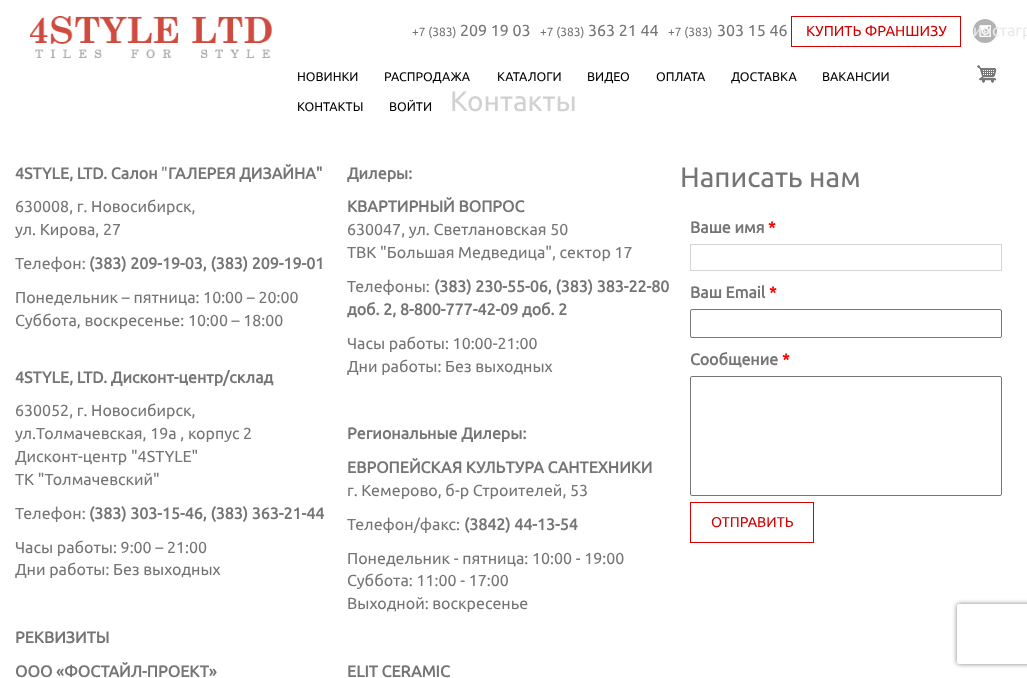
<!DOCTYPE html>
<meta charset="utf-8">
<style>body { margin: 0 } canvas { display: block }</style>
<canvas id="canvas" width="1027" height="678"></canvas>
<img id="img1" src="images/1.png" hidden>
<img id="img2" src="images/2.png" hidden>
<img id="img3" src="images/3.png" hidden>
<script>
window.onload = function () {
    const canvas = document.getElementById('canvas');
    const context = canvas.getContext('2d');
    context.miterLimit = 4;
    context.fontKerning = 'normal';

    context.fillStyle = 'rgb(255, 255, 255)';
    context.fillRect(0, 0, 1027, 678);
    context.drawImage(document.getElementById('img1'), 30, 16, 242, 42);
    context.strokeStyle = 'rgb(210, 0, 0)';
    context.strokeRect(791.5, 16.5, 169, 30);
    context.fillStyle = 'rgb(179, 179, 179)';
    context.beginPath();
    context.arc(985, 31, 12, 0, 2 * Math.PI);
    context.fill();
    context.drawImage(document.getElementById('img2'), 979, 25, 12, 12);
    context.drawImage(document.getElementById('img3'), 977, 65, 20, 18);
    context.strokeStyle = 'rgb(213, 213, 213)';
    context.strokeRect(690.5, 244.5, 311, 26);
    context.beginPath();
    context.roundRect(690.5, 309.5, 311, 28, 1.5);
    context.strokeStyle = 'rgb(118, 118, 118)';
    context.stroke();
    context.beginPath();
    context.roundRect(690.5, 376.5, 311, 119, 1.5);
    context.stroke();
    context.strokeStyle = 'rgb(210, 0, 0)';
    context.strokeRect(690.5, 502.5, 123, 40);
    context.save();
    context.beginPath();
    context.moveTo(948, 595);
    context.lineTo(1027, 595);
    context.lineTo(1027, 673);
    context.lineTo(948, 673);
    context.closePath();
    context.moveTo(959, 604);
    context.lineTo(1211, 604);
    context.bezierCurveTo(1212, 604, 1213, 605, 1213, 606);
    context.lineTo(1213, 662);
    context.bezierCurveTo(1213, 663, 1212, 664, 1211, 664);
    context.lineTo(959, 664);
    context.bezierCurveTo(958, 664, 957, 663, 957, 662);
    context.lineTo(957, 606);
    context.bezierCurveTo(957, 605, 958, 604, 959, 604);
    context.closePath();
    context.clip('evenodd');
    context.fillStyle = 'rgb(128, 128, 128)';
    context.filter = 'blur(2.5px)';
    context.beginPath();
    context.roundRect(957, 604, 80, 60, 2);
    context.fill();
    context.filter = 'none';
    context.restore();
    context.font = '12px Ubuntu';
    context.fillStyle = 'rgb(117, 117, 117)';
    context.fillText('+7 (383)', 412, 36);
    context.font = '16px Ubuntu';
    context.fillText('209 19 03', 460, 36);
    context.font = '12px Ubuntu';
    context.fillText('+7 (383)', 540, 36);
    context.font = '16px Ubuntu';
    context.fillText('363 21 44', 588, 36);
    context.font = '12px Ubuntu';
    context.fillText('+7 (383)', 668, 36);
    context.font = '16px Ubuntu';
    context.fillText('303 15 46', 717, 36);
    context.font = '14.5px Ubuntu';
    context.fillStyle = 'rgb(210, 0, 0)';
    context.fillText('КУПИТЬ ФРАНШИЗУ', 806, 36);
    context.font = '16px Ubuntu';
    context.fillStyle = 'rgb(233, 233, 233)';
    context.fillText('инстагр', 973, 36);
    context.font = '12.5px Ubuntu';
    context.fillStyle = 'rgb(0, 0, 0)';
    context.fillText('НОВИНКИ', 297, 81);
    context.fillText('РАСПРОДАЖА', 384, 81);
    context.fillText('КАТАЛОГИ', 497, 81);
    context.fillText('ВИДЕО', 587, 81);
    context.fillText('ОПЛАТА', 656, 81);
    context.fillText('ДОСТАВКА', 731, 81);
    context.fillText('ВАКАНСИИ', 822, 81);
    context.fillText('КОНТАКТЫ', 297, 111);
    context.fillText('ВОЙТИ', 389, 111);
    context.font = '28px Ubuntu';
    context.fillStyle = 'rgb(209, 209, 209)';
    context.fillText('Контакты', 450, 111);
    context.font = 'bold 16px Ubuntu';
    context.fillStyle = 'rgb(117, 117, 117)';
    context.fillText('4STYLE, LTD. Салон', 15, 179);
    context.font = '16px Ubuntu';
    context.fillText('"', 161, 179);
    context.font = 'bold 16px Ubuntu';
    context.fillText('ГАЛЕРЕЯ ДИЗАЙНА"', 168, 179);
    context.font = '16px Ubuntu';
    context.fillText('630008, г. Новосибирск,', 15, 212);
    context.fillText('ул. Кирова, 27', 15, 235);
    context.fillText('Телефон:', 15, 269);
    context.font = 'bold 16px Ubuntu';
    context.fillText('(383) 209-19-03, (383) 209-19-01', 89, 269);
    context.font = '16px Ubuntu';
    context.fillText('Понедельник – пятница: 10:00 – 20:00', 15, 303);
    context.fillText('Суббота, воскресенье: 10:00 – 18:00', 15, 326);
    context.font = 'bold 16px Ubuntu';
    context.fillText('4STYLE, LTD. Дисконт-центр/склад', 15, 383);
    context.font = '16px Ubuntu';
    context.fillText('630052, г. Новосибирск,', 15, 416);
    context.fillText('ул.Толмачевская, 19а , корпус 2', 15, 439);
    context.fillText('Дисконт-центр "4STYLE"', 15, 462);
    context.fillText('ТК "Толмачевский"', 15, 485);
    context.fillText('Телефон:', 15, 519);
    context.font = 'bold 16px Ubuntu';
    context.fillText('(383) 303-15-46, (383) 363-21-44', 89, 519);
    context.font = '16px Ubuntu';
    context.fillText('Часы работы: 9:00 – 21:00', 15, 553);
    context.fillText('Дни работы: Без выходных', 15, 575);
    context.font = 'bold 16px Ubuntu';
    context.fillText('РЕКВИЗИТЫ', 15, 643);
    context.fillText('ООО «ФОСТАЙЛ-ПРОЕКТ»', 15, 677);
    context.fillText('Дилеры:', 347, 179);
    context.fillText('КВАРТИРНЫЙ ВОПРОС', 347, 212);
    context.font = '16px Ubuntu';
    context.fillText('630047, ул. Светлановская 50', 347, 235);
    context.fillText('ТВК "Большая Медведица", сектор 17', 347, 258);
    context.fillText('Телефоны:', 347, 292);
    context.font = 'bold 16px Ubuntu';
    context.fillText('(383) 230-55-06, (383) 383-22-80', 434, 292);
    context.fillText('доб. 2, 8-800-777-42-09 доб. 2', 347, 315);
    context.font = '16px Ubuntu';
    context.fillText('Часы работы: 10:00-21:00', 347, 349);
    context.fillText('Дни работы: Без выходных', 347, 372);
    context.font = 'bold 16px Ubuntu';
    context.fillText('Региональные Дилеры:', 347, 439);
    context.fillText('ЕВРОПЕЙСКАЯ КУЛЬТУРА САНТЕХНИКИ', 347, 473);
    context.font = '16px Ubuntu';
    context.fillText('г. Кемерово, б-р Строителей, 53', 347, 496);
    context.fillText('Телефон/факс:', 347, 530);
    context.font = 'bold 16px Ubuntu';
    context.fillText('(3842) 44-13-54', 464, 530);
    context.font = '16px Ubuntu';
    context.fillText('Понедельник - пятница: 10:00 - 19:00', 347, 564);
    context.fillText('Суббота: 11:00 - 17:00', 347, 586);
    context.fillText('Выходной: воскресенье', 347, 609);
    context.font = 'bold 16px Ubuntu';
    context.fillText('ELIT CERAMIC', 347, 677);
    context.font = '28px Ubuntu';
    context.fillText('Написать нам', 680, 187);
    context.font = 'bold 16px Ubuntu';
    context.fillText('Ваше имя', 690, 233);
    context.fillStyle = 'rgb(255, 0, 0)';
    context.fillText('*', 768, 233);
    context.fillStyle = 'rgb(117, 117, 117)';
    context.fillText('Ваш Email', 690, 298);
    context.fillStyle = 'rgb(255, 0, 0)';
    context.fillText('*', 769, 298);
    context.fillStyle = 'rgb(117, 117, 117)';
    context.fillText('Сообщение', 690, 365);
    context.fillStyle = 'rgb(255, 0, 0)';
    context.fillText('*', 782, 365);
    context.font = '14.25px Ubuntu';
    context.fillStyle = 'rgb(210, 0, 0)';
    context.fillText('ОТПРАВИТЬ', 711, 527);
};
</script>
